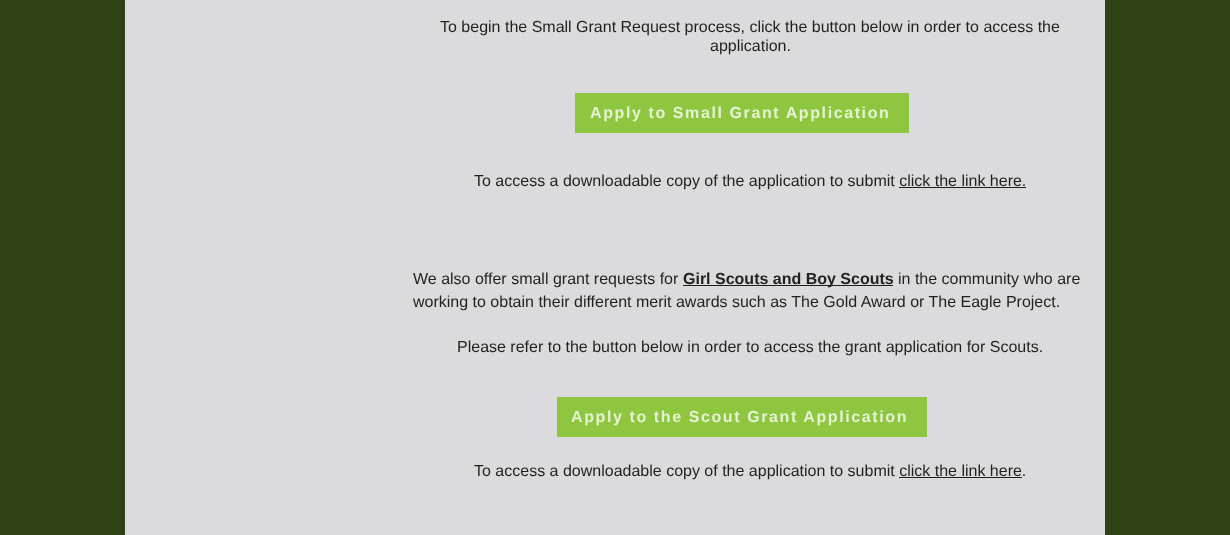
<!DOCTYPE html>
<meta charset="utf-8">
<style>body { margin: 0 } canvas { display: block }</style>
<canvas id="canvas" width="1230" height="535"></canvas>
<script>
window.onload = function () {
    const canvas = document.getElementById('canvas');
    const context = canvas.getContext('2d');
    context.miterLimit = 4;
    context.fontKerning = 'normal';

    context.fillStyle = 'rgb(47, 66, 21)';
    context.fillRect(0, 0, 1230, 535);
    context.fillStyle = 'rgb(219, 219, 221)';
    context.fillRect(125, 0, 980, 535);
    context.fillStyle = 'rgb(35, 31, 32)';
    context.fillRect(899, 187, 127, 1);
    context.fillRect(683, 285, 210, 1);
    context.fillRect(899, 477, 123, 1);
    context.fillStyle = 'rgb(142, 198, 63)';
    context.fillRect(575, 93, 334, 40);
    context.fillRect(557, 397, 370, 40);
    context.font = '16px Liberation Sans';
    context.fillStyle = 'rgb(35, 31, 32)';
    context.fillText('To begin the Small Grant Request process, click the button below in order to access the', 440, 32);
    context.fillText('application.', 710, 51);
    context.fillText('To access a downloadable copy of the application to submit click the link here.', 474, 186);
    context.fillText('We also offer small grant requests for', 413, 284);
    context.font = 'bold 16px Liberation Sans';
    context.fillText('Girl Scouts and Boy Scouts', 683, 284);
    context.font = '16px Liberation Sans';
    context.fillText('in the community who are', 898, 284);
    context.fillText('working to obtain their different merit awards such as The Gold Award or The Eagle Project.', 413, 307);
    context.fillText('Please refer to the button below in order to access the grant application for Scouts.', 457, 352);
    context.fillText('To access a downloadable copy of the application to submit click the link here.', 474, 476);
    context.letterSpacing = '1.6px';
    context.font = 'bold 16px Liberation Sans';
    context.fillStyle = 'rgb(231, 242, 212)';
    context.fillText('Apply to Small Grant Application', 590, 118);
    context.fillText('Apply to the Scout Grant Application', 571, 422);
};
</script>
